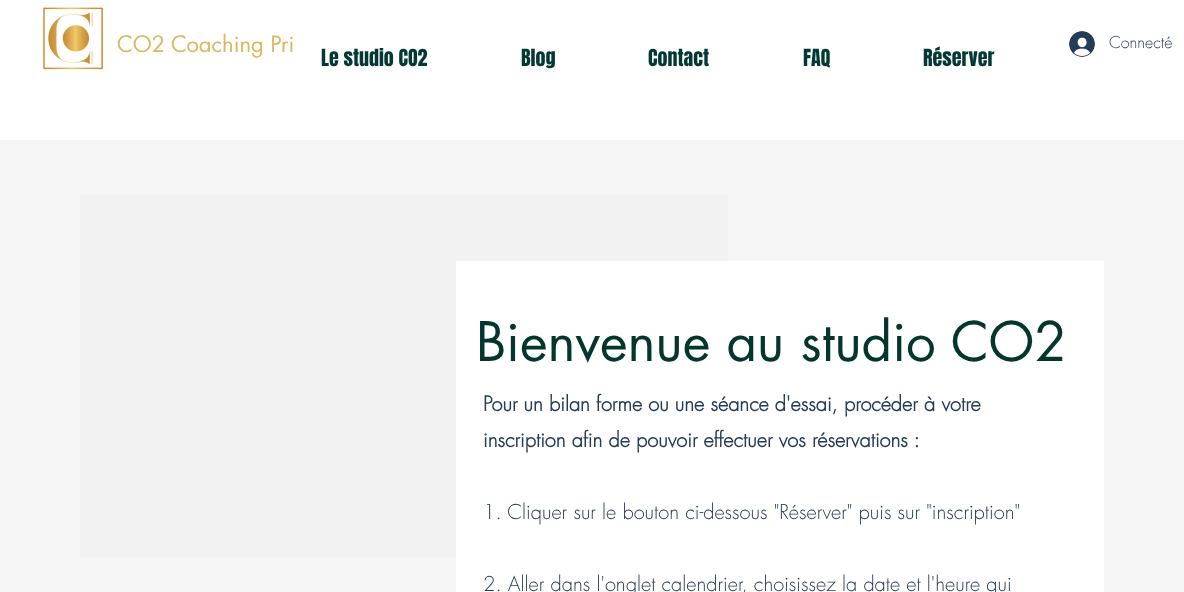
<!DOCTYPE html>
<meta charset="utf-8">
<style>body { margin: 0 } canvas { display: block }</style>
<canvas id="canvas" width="1184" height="592"></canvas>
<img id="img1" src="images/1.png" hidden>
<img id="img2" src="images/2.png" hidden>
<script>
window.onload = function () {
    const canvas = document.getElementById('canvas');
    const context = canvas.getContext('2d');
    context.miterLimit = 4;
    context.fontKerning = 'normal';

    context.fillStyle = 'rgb(255, 255, 255)';
    context.fillRect(0, 0, 1184, 592);
    context.drawImage(document.getElementById('img1'), 43, 7, 60, 63);
    context.drawImage(document.getElementById('img2'), 1069, 31, 26, 26);
    context.fillStyle = 'rgb(245, 245, 245)';
    context.fillRect(0, 140, 1184, 452);
    context.fillStyle = 'rgb(242, 242, 242)';
    context.fillRect(80, 195, 648, 362);
    context.fillStyle = 'rgb(255, 255, 255)';
    context.fillRect(456, 261, 648, 331);
    context.font = '22px futura';
    context.fillStyle = 'rgb(219, 183, 94)';
    context.fillText('CO2', 117, 52);
    context.fillText('Coaching Pri', 171, 52);
    context.font = '300 16px futura';
    context.fillStyle = 'rgb(37, 60, 87)';
    context.fillText('Connecté', 1109, 48);
    context.font = '20px Anton';
    context.fillStyle = 'rgb(4, 56, 52)';
    context.fillText('Le studio CO2', 321, 66);
    context.fillText('Blog', 521, 66);
    context.fillText('Contact', 648, 66);
    context.fillText('FAQ', 803, 66);
    context.fillText('Réserver', 923, 66);
    context.font = '53px futura';
    context.fillStyle = 'rgb(4, 54, 46)';
    context.fillText('Bienvenue au studio CO2', 476, 361);
    context.font = 'bold 20px futura';
    context.fillStyle = 'rgb(37, 60, 87)';
    context.fillText('Pour un bilan forme ou une séance d\'essai, procéder à votre', 483, 411);
    context.fillText('inscription afin de pouvoir effectuer vos réservations :', 483, 447);
    context.font = '300 20px futura';
    context.fillText('1. Cliquer sur le bouton ci-dessous "Réserver" puis sur "inscription"', 483, 519);
    context.fillText('2. Aller dans l\'onglet calendrier, choisissez la date et l\'heure qui', 483, 591);
};
</script>
